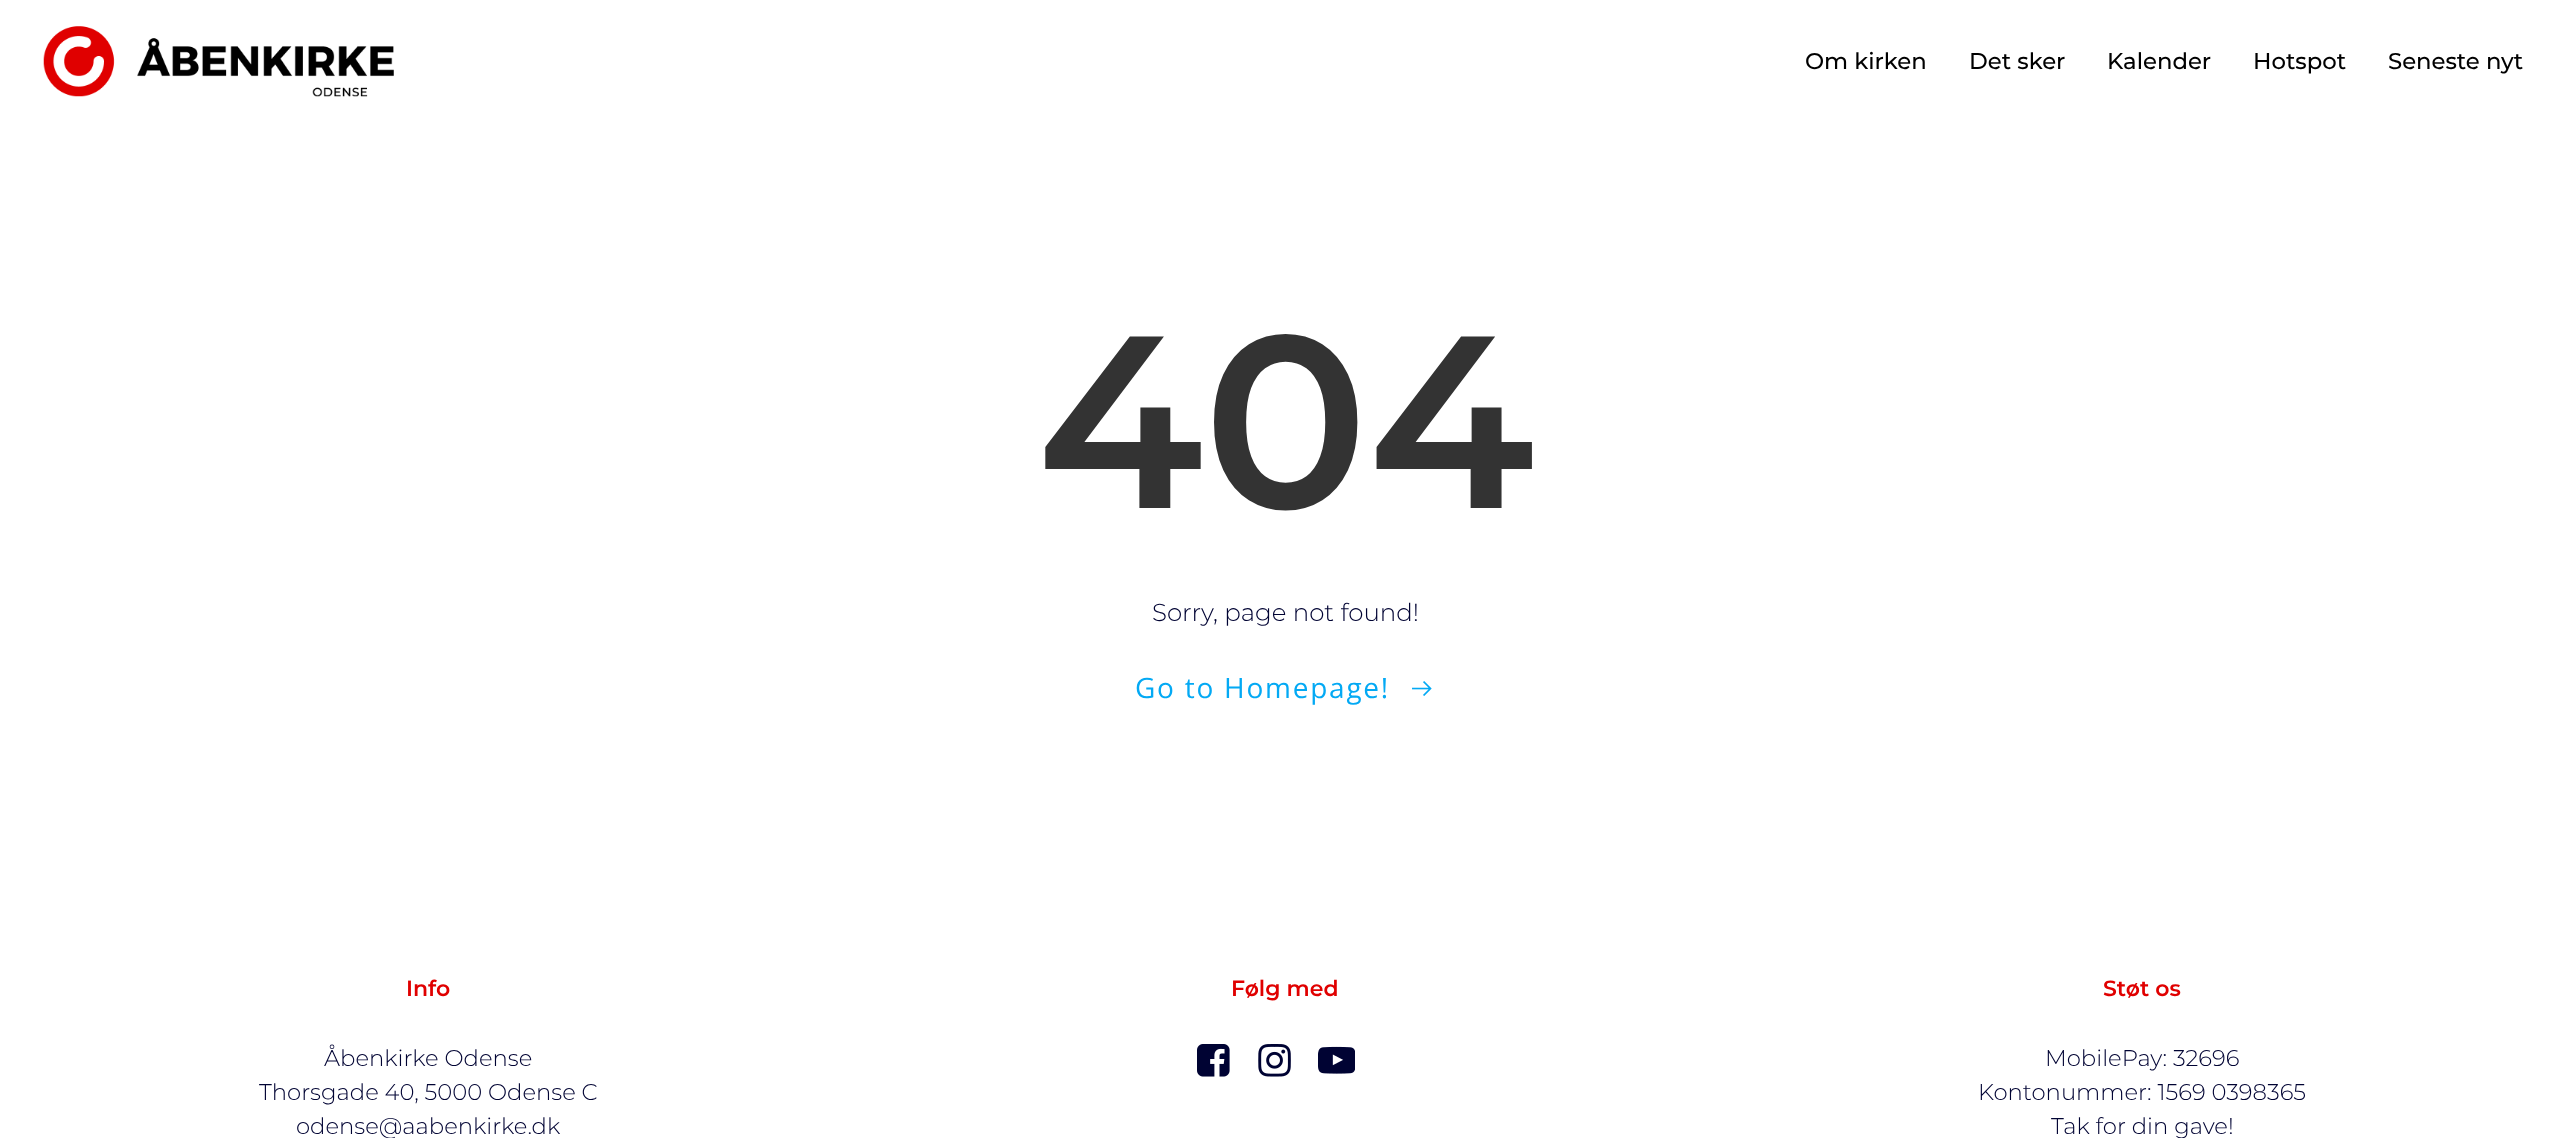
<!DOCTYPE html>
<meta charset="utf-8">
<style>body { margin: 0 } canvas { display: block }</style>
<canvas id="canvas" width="2570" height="1138"></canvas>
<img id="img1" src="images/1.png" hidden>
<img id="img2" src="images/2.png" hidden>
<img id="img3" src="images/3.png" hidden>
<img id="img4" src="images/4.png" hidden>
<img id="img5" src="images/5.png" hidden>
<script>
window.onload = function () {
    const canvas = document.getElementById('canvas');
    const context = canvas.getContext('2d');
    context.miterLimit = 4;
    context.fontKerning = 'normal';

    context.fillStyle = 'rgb(255, 255, 255)';
    context.fillRect(0, 0, 2570, 1138);
    context.drawImage(document.getElementById('img1'), 43, 26, 351, 71);
    context.drawImage(document.getElementById('img2'), 1412, 681, 20, 15);
    context.drawImage(document.getElementById('img3'), 1197, 1044, 33, 33);
    context.drawImage(document.getElementById('img4'), 1258, 1044, 33, 33);
    context.drawImage(document.getElementById('img5'), 1318, 1046, 37, 28);
    context.font = '500 22.75px Montserrat';
    context.fillStyle = 'rgb(0, 0, 0)';
    context.fillText('Om kirken', 1805, 69);
    context.fillText('Det sker', 1969, 69);
    context.fillText('Kalender', 2107, 69);
    context.fillText('Hotspot', 2253, 69);
    context.fillText('Seneste nyt', 2388, 69);
    context.font = '600 245px Montserrat';
    context.fillStyle = 'rgb(51, 51, 51)';
    context.fillText('404', 1037, 508);
    context.font = '300 24.5px Montserrat';
    context.fillStyle = 'rgb(0, 3, 51)';
    context.fillText('Sorry, page not found!', 1152, 621);
    context.letterSpacing = '1.75px';
    context.font = '28px Open Sans';
    context.fillStyle = 'rgb(3, 169, 244)';
    context.fillText('Go to Homepage!', 1135, 698);
    context.letterSpacing = '0px';
    context.font = '600 22px Montserrat';
    context.fillStyle = 'rgb(224, 0, 0)';
    context.fillText('Info', 406, 996);
    context.font = '300 22.75px Montserrat';
    context.fillStyle = 'rgb(0, 3, 51)';
    context.fillText('Åbenkirke Odense', 324, 1066);
    context.fillText('Thorsgade 40, 5000 Odense C', 259, 1100);
    context.fillText('odense@aabenkirke.dk', 296, 1134);
    context.font = '600 22px Montserrat';
    context.fillStyle = 'rgb(224, 0, 0)';
    context.fillText('Følg med', 1231, 996);
    context.fillText('Støt os', 2103, 996);
    context.font = '300 22.75px Montserrat';
    context.fillStyle = 'rgb(0, 3, 51)';
    context.fillText('MobilePay: 32696', 2045, 1066);
    context.fillText('Kontonummer: 1569 0398365', 1978, 1100);
    context.fillText('Tak for din gave!', 2051, 1134);
};
</script>
